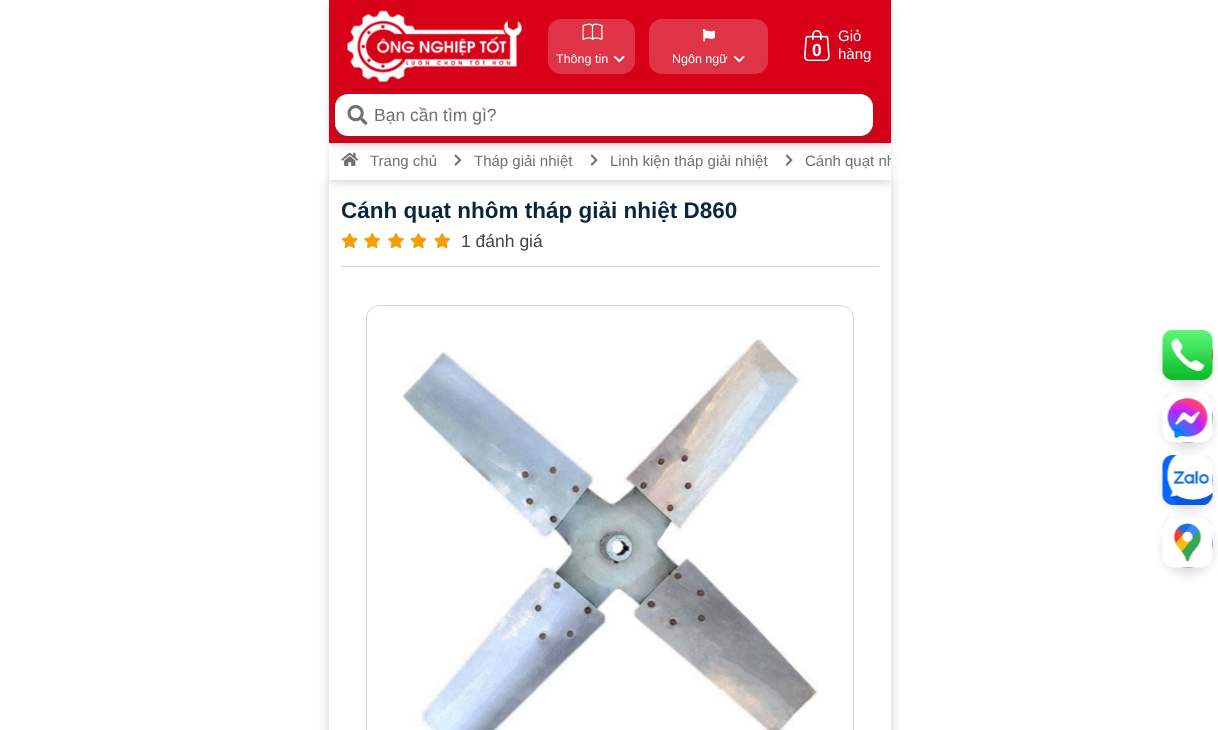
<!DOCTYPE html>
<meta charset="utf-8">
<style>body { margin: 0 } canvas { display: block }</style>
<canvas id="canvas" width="1218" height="730"></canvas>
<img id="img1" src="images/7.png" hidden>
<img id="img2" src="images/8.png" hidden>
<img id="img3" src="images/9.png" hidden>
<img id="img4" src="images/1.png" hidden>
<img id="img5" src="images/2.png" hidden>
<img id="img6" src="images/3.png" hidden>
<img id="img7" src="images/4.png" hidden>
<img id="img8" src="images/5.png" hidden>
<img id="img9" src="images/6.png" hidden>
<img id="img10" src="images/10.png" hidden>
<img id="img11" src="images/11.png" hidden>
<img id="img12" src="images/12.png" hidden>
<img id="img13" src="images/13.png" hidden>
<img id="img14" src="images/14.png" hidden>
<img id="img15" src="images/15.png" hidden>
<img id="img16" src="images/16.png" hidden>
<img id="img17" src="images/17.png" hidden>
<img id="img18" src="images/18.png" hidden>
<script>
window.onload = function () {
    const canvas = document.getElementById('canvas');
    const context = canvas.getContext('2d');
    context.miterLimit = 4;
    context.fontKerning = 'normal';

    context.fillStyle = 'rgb(255, 255, 255)';
    context.fillRect(0, 0, 1218, 730);
    context.fillStyle = 'rgba(0, 0, 0, 0.06)';
    context.filter = 'blur(2.5px)';
    context.beginPath();
    context.rect(330, 146, 560, 35);
    context.fill();
    context.filter = 'none';
    context.fillStyle = 'rgba(0, 0, 0, 0.1)';
    context.filter = 'blur(4px)';
    context.beginPath();
    context.rect(330, 149, 560, 35);
    context.fill();
    context.filter = 'none';
    context.save();
    context.beginPath();
    context.moveTo(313, 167);
    context.lineTo(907, 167);
    context.lineTo(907, 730);
    context.lineTo(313, 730);
    context.closePath();
    context.moveTo(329, 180);
    context.lineTo(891, 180);
    context.lineTo(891, 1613);
    context.lineTo(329, 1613);
    context.closePath();
    context.clip('evenodd');
    context.fillStyle = 'rgba(60, 64, 67, 0.15)';
    context.filter = 'blur(4px)';
    context.beginPath();
    context.rect(326, 180, 568, 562);
    context.fill();
    context.filter = 'none';
    context.restore();
    context.fillStyle = 'rgb(255, 255, 255)';
    context.fillRect(329, 143, 562, 37);
    context.drawImage(document.getElementById('img1'), 341, 152, 18, 14);
    context.fillStyle = 'rgba(0, 0, 0, 0.06)';
    context.filter = 'blur(2.5px)';
    context.beginPath();
    context.rect(330, 4, 560, 140);
    context.fill();
    context.filter = 'none';
    context.drawImage(document.getElementById('img2'), 454, 154, 8, 12);
    context.drawImage(document.getElementById('img3'), 590, 154, 8, 12);
    context.drawImage(document.getElementById('img3'), 785, 154, 8, 12);
    context.fillStyle = 'rgba(0, 0, 0, 0.1)';
    context.filter = 'blur(4px)';
    context.beginPath();
    context.rect(330, 6, 560, 140);
    context.fill();
    context.filter = 'none';
    context.fillStyle = 'rgb(215, 0, 24)';
    context.fillRect(329, 0, 562, 143);
    context.drawImage(document.getElementById('img4'), 347, 10, 175, 72);
    context.fillStyle = 'rgb(223, 51, 70)';
    context.beginPath();
    context.roundRect(548, 19, 87, 55, 13);
    context.fill();
    context.drawImage(document.getElementById('img5'), 582, 23, 21, 17);
    context.drawImage(document.getElementById('img6'), 614, 55, 11, 8);
    context.beginPath();
    context.roundRect(649, 19, 119, 55, 13);
    context.fill();
    context.drawImage(document.getElementById('img7'), 702, 29, 13, 13);
    context.drawImage(document.getElementById('img6'), 734, 55, 11, 8);
    context.drawImage(document.getElementById('img8'), 804, 30, 26, 31);
    context.fillStyle = 'rgba(60, 64, 67, 0.15)';
    context.filter = 'blur(4px)';
    context.beginPath();
    context.roundRect(333, 94, 542, 47, 15);
    context.fill();
    context.filter = 'none';
    context.fillStyle = 'rgba(60, 64, 67, 0.1)';
    context.filter = 'blur(1px)';
    context.beginPath();
    context.roundRect(335, 95, 538, 43, 13);
    context.fill();
    context.filter = 'none';
    context.fillStyle = 'rgb(255, 255, 255)';
    context.beginPath();
    context.roundRect(335, 94, 33, 42, [13, 0, 0, 13]);
    context.fill();
    context.drawImage(document.getElementById('img9'), 347, 105, 21, 20);
    context.beginPath();
    context.roundRect(368, 94, 505, 42, [0, 13, 13, 0]);
    context.fill();
    context.fillStyle = 'rgb(209, 213, 219)';
    context.fillRect(341, 266, 538, 1);
    context.drawImage(document.getElementById('img10'), 341, 233, 17, 16);
    context.drawImage(document.getElementById('img11'), 364, 233, 16, 16);
    context.drawImage(document.getElementById('img12'), 388, 233, 16, 16);
    context.drawImage(document.getElementById('img13'), 410, 233, 17, 16);
    context.drawImage(document.getElementById('img11'), 434, 233, 16, 16);
    context.beginPath();
    context.roundRect(366.5, 305.5, 487, 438, 12.5);
    context.strokeStyle = 'rgb(209, 213, 219)';
    context.stroke();
    context.drawImage(document.getElementById('img14'), 401, 339, 418, 391);
    context.fillStyle = 'rgba(0, 0, 0, 0.15)';
    context.filter = 'blur(6px)';
    context.beginPath();
    context.roundRect(1163, 336, 50, 50, 25);
    context.fill();
    context.filter = 'none';
    context.fillStyle = 'rgb(255, 0, 0)';
    context.beginPath();
    context.arc(1188, 355, 25, 0, 2 * Math.PI);
    context.fill();
    context.drawImage(document.getElementById('img15'), 1162, 330, 51, 50);
    context.fillStyle = 'rgba(0, 0, 0, 0.15)';
    context.filter = 'blur(6px)';
    context.beginPath();
    context.roundRect(1163, 399, 50, 50, 25);
    context.fill();
    context.filter = 'none';
    context.fillStyle = 'rgb(59, 89, 153)';
    context.beginPath();
    context.arc(1188, 418, 25, 0, 2 * Math.PI);
    context.fill();
    context.drawImage(document.getElementById('img16'), 1162, 392, 51, 51);
    context.fillStyle = 'rgba(0, 0, 0, 0.15)';
    context.filter = 'blur(6px)';
    context.beginPath();
    context.roundRect(1163, 461, 50, 50, 25);
    context.fill();
    context.filter = 'none';
    context.fillStyle = 'rgb(0, 141, 242)';
    context.beginPath();
    context.arc(1188, 480, 25, 0, 2 * Math.PI);
    context.fill();
    context.drawImage(document.getElementById('img17'), 1162, 455, 51, 50);
    context.fillStyle = 'rgba(0, 0, 0, 0.15)';
    context.filter = 'blur(6px)';
    context.beginPath();
    context.roundRect(1163, 524, 50, 50, 25);
    context.fill();
    context.filter = 'none';
    context.fillStyle = 'rgb(59, 89, 153)';
    context.beginPath();
    context.arc(1188, 543, 25, 0, 2 * Math.PI);
    context.fill();
    context.drawImage(document.getElementById('img18'), 1162, 517, 51, 51);
    context.font = '12.5px Liberation Sans';
    context.fillStyle = 'rgb(255, 255, 255)';
    context.fillText('Thông tin', 556, 63);
    context.save();
    context.beginPath();
    context.rect(673, 48, 55, 22);
    context.clip();
    context.fillText('Ngôn ngữ', 672, 63);
    context.restore();
    context.font = 'bold 17.5px Liberation Sans';
    context.fillText('0', 812, 56);
    context.font = '15px Liberation Sans';
    context.fillText('Giỏ', 838, 41);
    context.fillText('hàng', 838, 59);
    context.font = '17.5px Liberation Sans';
    context.fillStyle = 'rgb(112, 112, 112)';
    context.fillText('Bạn cần tìm gì?', 374, 121);
    context.font = '15px Liberation Sans';
    context.fillText('Trang chủ', 370, 166);
    context.fillText('Tháp giải nhiệt', 474, 166);
    context.fillText('Linh kiện tháp giải nhiệt', 610, 166);
    context.save();
    context.beginPath();
    context.rect(329, 143, 562, 37);
    context.clip();
    context.fillText('Cánh quạt nh', 805, 166);
    context.restore();
    context.font = 'bold 22.5px Liberation Sans';
    context.fillStyle = 'rgb(10, 38, 60)';
    context.fillText('Cánh quạt nhôm tháp giải nhiệt D860', 341, 218);
    context.font = '17.5px Liberation Sans';
    context.fillStyle = 'rgb(68, 68, 68)';
    context.fillText('1 đánh giá', 461, 247);
};
</script>
